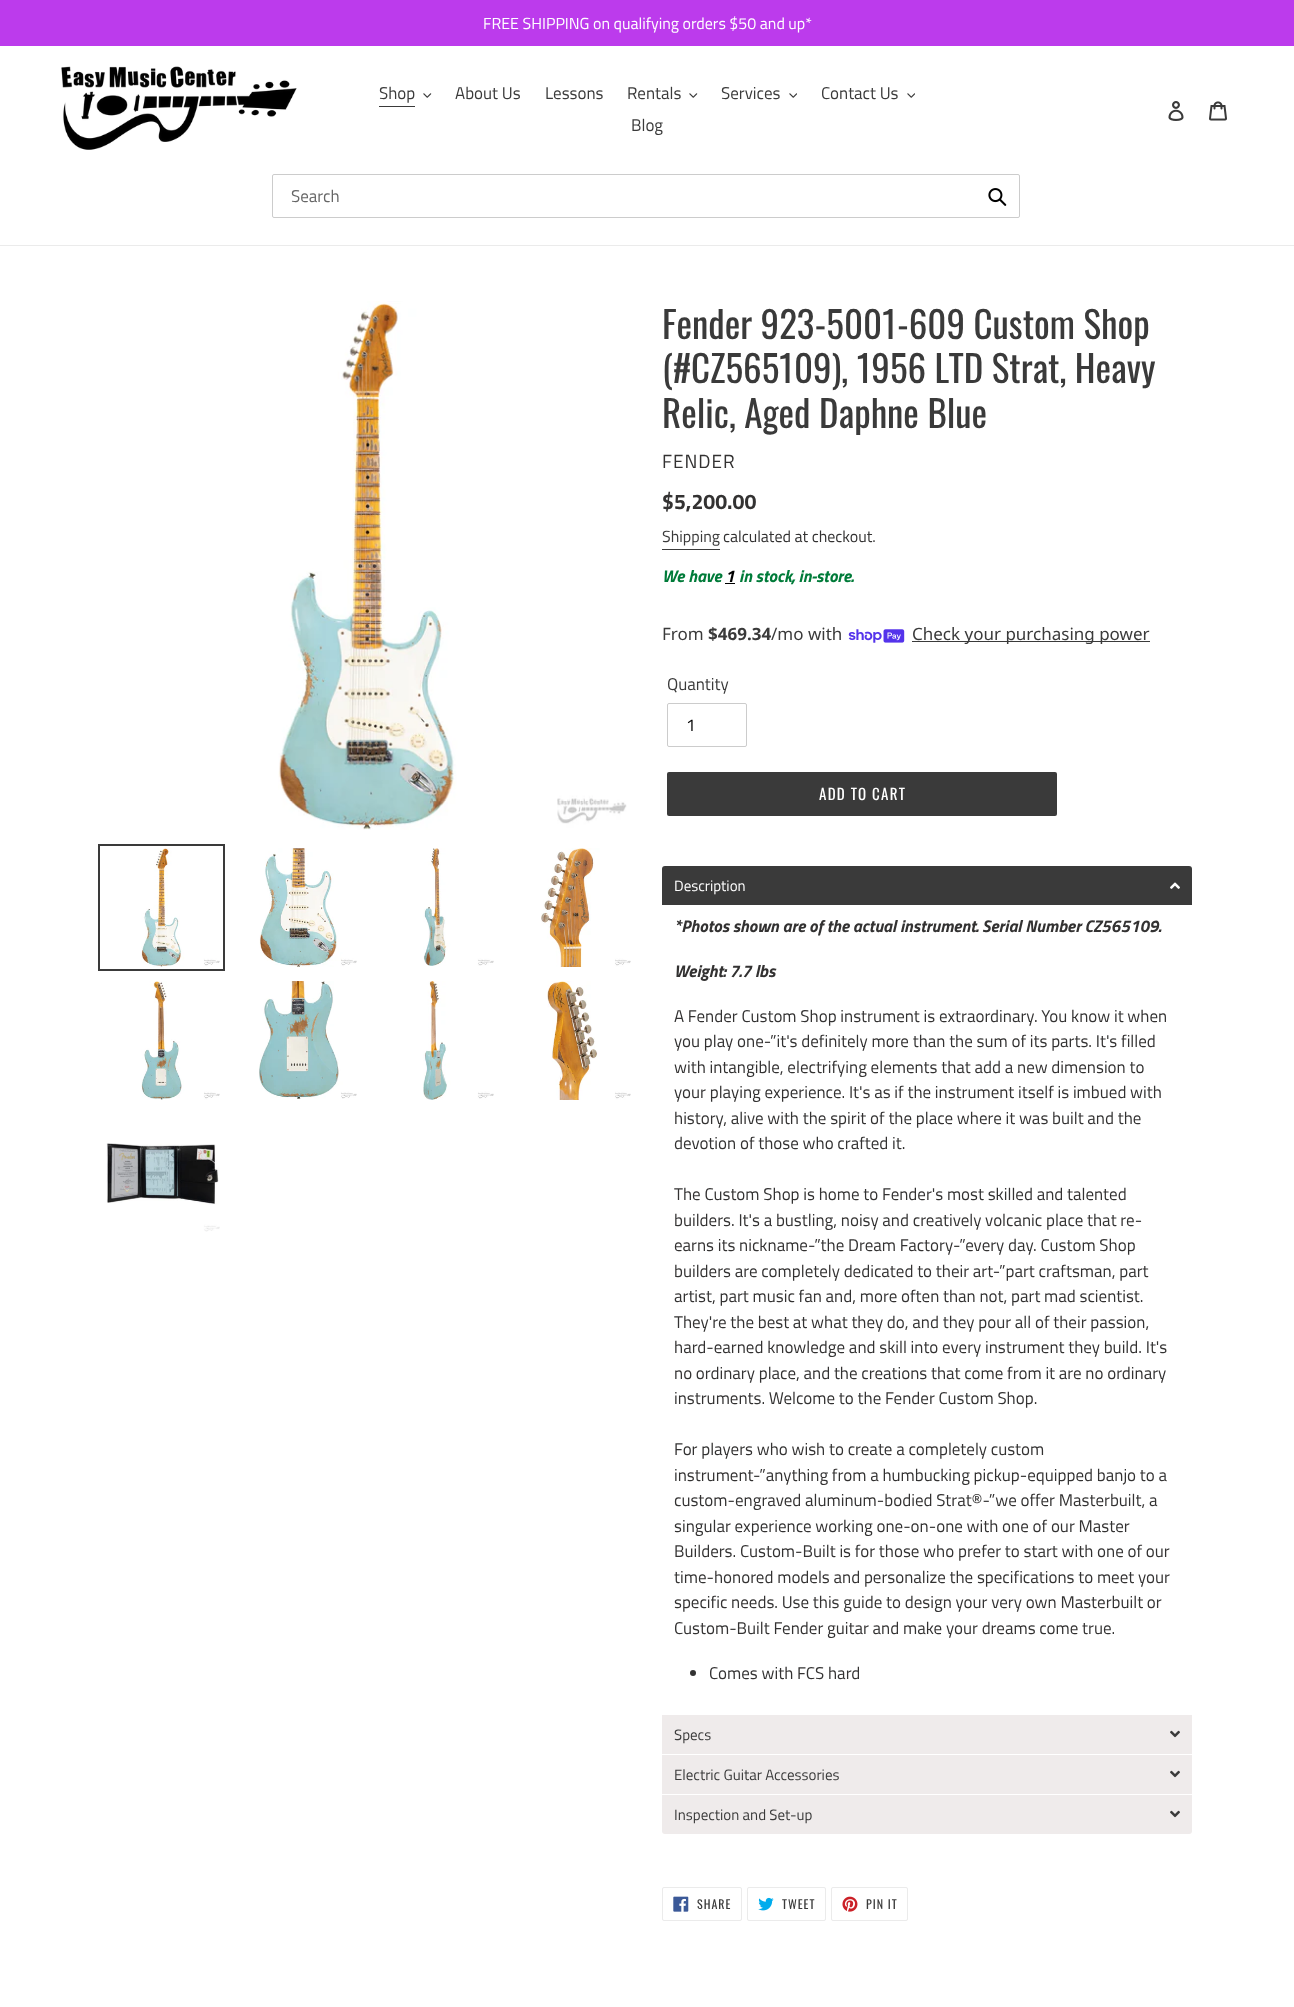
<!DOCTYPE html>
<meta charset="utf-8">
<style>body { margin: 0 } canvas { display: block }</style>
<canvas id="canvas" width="1294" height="2007"></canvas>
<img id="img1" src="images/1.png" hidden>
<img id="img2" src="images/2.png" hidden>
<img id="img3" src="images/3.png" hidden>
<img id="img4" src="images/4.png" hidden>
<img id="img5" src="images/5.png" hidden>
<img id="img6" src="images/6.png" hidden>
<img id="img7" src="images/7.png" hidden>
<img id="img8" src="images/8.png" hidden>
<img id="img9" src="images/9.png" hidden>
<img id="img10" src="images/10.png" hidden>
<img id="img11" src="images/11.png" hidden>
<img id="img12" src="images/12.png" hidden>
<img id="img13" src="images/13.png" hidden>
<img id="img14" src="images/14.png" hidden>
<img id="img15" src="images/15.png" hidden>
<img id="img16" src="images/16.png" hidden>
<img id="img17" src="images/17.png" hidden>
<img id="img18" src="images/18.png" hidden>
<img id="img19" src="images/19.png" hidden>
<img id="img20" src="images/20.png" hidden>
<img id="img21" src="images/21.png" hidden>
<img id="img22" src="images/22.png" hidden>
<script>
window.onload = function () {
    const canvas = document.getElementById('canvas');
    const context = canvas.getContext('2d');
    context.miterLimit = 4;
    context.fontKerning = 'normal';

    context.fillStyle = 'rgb(255, 255, 255)';
    context.fillRect(0, 0, 1294, 2007);
    context.fillStyle = 'rgb(188, 59, 236)';
    context.fillRect(0, 0, 1294, 46);
    context.fillStyle = 'rgb(235, 235, 235)';
    context.fillRect(0, 245, 1294, 1);
    context.drawImage(document.getElementById('img1'), 61, 66, 236, 84);
    context.fillStyle = 'rgb(58, 58, 58)';
    context.fillRect(379, 106, 36, 1);
    context.drawImage(document.getElementById('img2'), 423, 93, 9, 5);
    context.drawImage(document.getElementById('img2'), 689, 93, 9, 5);
    context.drawImage(document.getElementById('img3'), 789, 93, 8, 5);
    context.drawImage(document.getElementById('img3'), 907, 93, 8, 5);
    context.drawImage(document.getElementById('img4'), 1168, 101, 16, 20);
    context.drawImage(document.getElementById('img5'), 1209, 101, 18, 20);
    context.beginPath();
    context.roundRect(272.5, 174.5, 747, 43, 1.5);
    context.strokeStyle = 'rgb(204, 204, 204)';
    context.stroke();
    context.drawImage(document.getElementById('img6'), 988, 188, 19, 18);
    context.drawImage(document.getElementById('img7'), 278, 301, 349, 529);
    context.strokeStyle = 'rgb(58, 58, 58)';
    context.lineWidth = 2;
    context.strokeRect(99, 845, 125, 125);
    context.drawImage(document.getElementById('img8'), 141, 848, 79, 119);
    context.drawImage(document.getElementById('img9'), 259, 848, 98, 119);
    context.drawImage(document.getElementById('img10'), 423, 848, 71, 118);
    context.drawImage(document.getElementById('img11'), 541, 848, 90, 119);
    context.drawImage(document.getElementById('img12'), 141, 981, 79, 119);
    context.drawImage(document.getElementById('img13'), 259, 981, 98, 118);
    context.drawImage(document.getElementById('img14'), 423, 981, 71, 119);
    context.drawImage(document.getElementById('img15'), 547, 981, 84, 119);
    context.drawImage(document.getElementById('img16'), 106, 1143, 114, 89);
    context.fillRect(662, 549, 58, 1);
    context.fillStyle = 'rgb(0, 0, 0)';
    context.fillRect(725, 583, 10, 1);
    context.drawImage(document.getElementById('img17'), 848, 629, 57, 14);
    context.fillStyle = 'rgb(58, 58, 58)';
    context.fillRect(912, 641, 238, 1);
    context.beginPath();
    context.roundRect(667.5, 703.5, 79, 43, 1.5);
    context.strokeStyle = 'rgb(204, 204, 204)';
    context.lineWidth = 1;
    context.stroke();
    context.beginPath();
    context.roundRect(667, 772, 390, 44, 2);
    context.fill();
    context.beginPath();
    context.roundRect(662, 866, 530, 39, [3, 3, 0, 0]);
    context.fill();
    context.drawImage(document.getElementById('img18'), 1170, 882, 10, 7);
    context.fillStyle = 'rgb(51, 51, 51)';
    context.beginPath();
    context.arc(693, 1673, 3, 0, 2 * Math.PI);
    context.fill();
    context.fillStyle = 'rgb(239, 235, 235)';
    context.fillRect(662, 1715, 530, 39);
    context.drawImage(document.getElementById('img19'), 1170, 1730, 10, 8);
    context.fillRect(662, 1755, 530, 39);
    context.drawImage(document.getElementById('img19'), 1170, 1770, 10, 8);
    context.beginPath();
    context.roundRect(662, 1795, 530, 39, [0, 0, 3, 3]);
    context.fill();
    context.drawImage(document.getElementById('img19'), 1170, 1810, 10, 8);
    context.beginPath();
    context.roundRect(662.5, 1887.5, 79, 33, 1.5);
    context.strokeStyle = 'rgb(235, 235, 235)';
    context.stroke();
    context.drawImage(document.getElementById('img20'), 673, 1896, 16, 16);
    context.beginPath();
    context.roundRect(747.5, 1887.5, 78, 33, 1.5);
    context.stroke();
    context.drawImage(document.getElementById('img21'), 758, 1897, 16, 14);
    context.beginPath();
    context.roundRect(831.5, 1887.5, 76, 33, 1.5);
    context.stroke();
    context.drawImage(document.getElementById('img22'), 842, 1896, 16, 16);
    context.font = '16px Titillium Web';
    context.fillStyle = 'rgb(255, 255, 255)';
    context.fillText('FREE SHIPPING on qualifying orders $50 and up*', 483, 29);
    context.font = '17px Titillium Web';
    context.fillStyle = 'rgb(58, 58, 58)';
    context.fillText('Shop', 379, 99);
    context.fillText('About Us', 455, 99);
    context.fillText('Lessons', 545, 99);
    context.fillText('Rentals', 627, 99);
    context.fillText('Services', 721, 99);
    context.fillText('Contact Us', 821, 99);
    context.fillText('Blog', 631, 131);
    context.fillStyle = 'rgb(102, 102, 102)';
    context.fillText('Search', 291, 202);
    context.font = '37px Oswald';
    context.fillStyle = 'rgb(58, 58, 58)';
    context.fillText('Fender 923-5001-609 Custom Shop', 662, 339);
    context.fillText('(#CZ565109), 1956 LTD Strat, Heavy', 662, 383);
    context.fillText('Relic, Aged Daphne Blue', 662, 428);
    context.letterSpacing = '1px';
    context.font = '19px Titillium Web';
    context.fillStyle = 'rgb(51, 50, 50)';
    context.fillText('FENDER', 662, 468);
    context.letterSpacing = '0px';
    context.font = 'bold 21.25px Titillium Web';
    context.fillText('$5,200.00', 662, 509);
    context.font = '16px Titillium Web';
    context.fillStyle = 'rgb(58, 58, 58)';
    context.fillText('Shipping', 662, 542);
    context.fillStyle = 'rgb(51, 50, 50)';
    context.fillText('calculated at checkout.', 723, 542);
    context.font = 'italic bold 17px Titillium Web';
    context.fillStyle = 'rgb(0, 123, 57)';
    context.fillText('We have', 662, 582);
    context.fillStyle = 'rgb(0, 0, 0)';
    context.fillText('1', 725, 582);
    context.fillStyle = 'rgb(0, 123, 57)';
    context.fillText('in stock, in-store.', 739, 582);
    context.font = '17px Noto Sans';
    context.fillStyle = 'rgb(58, 58, 58)';
    context.fillText('From', 662, 640);
    context.font = 'bold 17px Noto Sans';
    context.fillText('$469.34', 708, 640);
    context.font = '17px Noto Sans';
    context.fillText('/mo with', 771, 640);
    context.fillText('Check your purchasing power', 912, 640);
    context.font = '17px Titillium Web';
    context.fillText('Quantity', 667, 690);
    context.fillStyle = 'rgb(0, 0, 0)';
    context.fillText('1', 686, 731);
    context.letterSpacing = '1.25px';
    context.font = '15px Oswald';
    context.fillStyle = 'rgb(255, 255, 255)';
    context.fillText('ADD TO CART', 819, 800);
    context.letterSpacing = '0px';
    context.font = '15px Titillium Web';
    context.fillText('Description', 674, 891);
    context.font = 'italic bold 17px Titillium Web';
    context.fillStyle = 'rgb(51, 50, 50)';
    context.fillText('*Photos shown are of the actual instrument. Serial Number CZ565109.', 674, 932);
    context.fillText('Weight: 7.7 lbs', 674, 977);
    context.font = '17px Titillium Web';
    context.fillText('A Fender Custom Shop instrument is extraordinary. You know it when', 674, 1022);
    context.fillText('you play one-”it\'s definitely more than the sum of its parts. It\'s filled', 674, 1047);
    context.fillText('with intangible, electrifying elements that add a new dimension to', 674, 1073);
    context.fillText('your playing experience. It\'s as if the instrument itself is imbued with', 674, 1098);
    context.fillText('history, alive with the spirit of the place where it was built and the', 674, 1124);
    context.fillText('devotion of those who crafted it.', 674, 1149);
    context.fillText('The Custom Shop is home to Fender\'s most skilled and talented', 674, 1200);
    context.fillText('builders. It\'s a bustling, noisy and creatively volcanic place that re-', 674, 1226);
    context.fillText('earns its nickname-”the Dream Factory-”every day. Custom Shop', 674, 1251);
    context.fillText('builders are completely dedicated to their art-”part craftsman, part', 674, 1277);
    context.fillText('artist, part music fan and, more often than not, part mad scientist.', 674, 1302);
    context.fillText('They\'re the best at what they do, and they pour all of their passion,', 674, 1328);
    context.fillText('hard-earned knowledge and skill into every instrument they build. It\'s', 674, 1353);
    context.fillText('no ordinary place, and the creations that come from it are no ordinary', 674, 1379);
    context.fillText('instruments. Welcome to the Fender Custom Shop.', 674, 1404);
    context.fillText('For players who wish to create a completely custom', 674, 1455);
    context.fillText('instrument-”anything from a humbucking pickup-equipped banjo to a', 674, 1481);
    context.fillText('custom-engraved aluminum-bodied Strat®-”we offer Masterbuilt, a', 674, 1506);
    context.fillText('singular experience working one-on-one with one of our Master', 674, 1532);
    context.fillText('Builders. Custom-Built is for those who prefer to start with one of our', 674, 1557);
    context.fillText('time-honored models and personalize the specifications to meet your', 674, 1583);
    context.fillText('specific needs. Use this guide to design your very own Masterbuilt or', 674, 1608);
    context.fillText('Custom-Built Fender guitar and make your dreams come true.', 674, 1634);
    context.fillText('Comes with FCS hard', 709, 1679);
    context.font = '15px Titillium Web';
    context.fillStyle = 'rgb(58, 58, 58)';
    context.fillText('Specs', 674, 1740);
    context.fillText('Electric Guitar Accessories', 674, 1780);
    context.fillText('Inspection and Set-up', 674, 1820);
    context.letterSpacing = '1px';
    context.font = '12px Oswald';
    context.fillText('SHARE', 697, 1909);
    context.fillText('TWEET', 782, 1909);
    context.fillText('PIN IT', 866, 1909);
};
</script>
